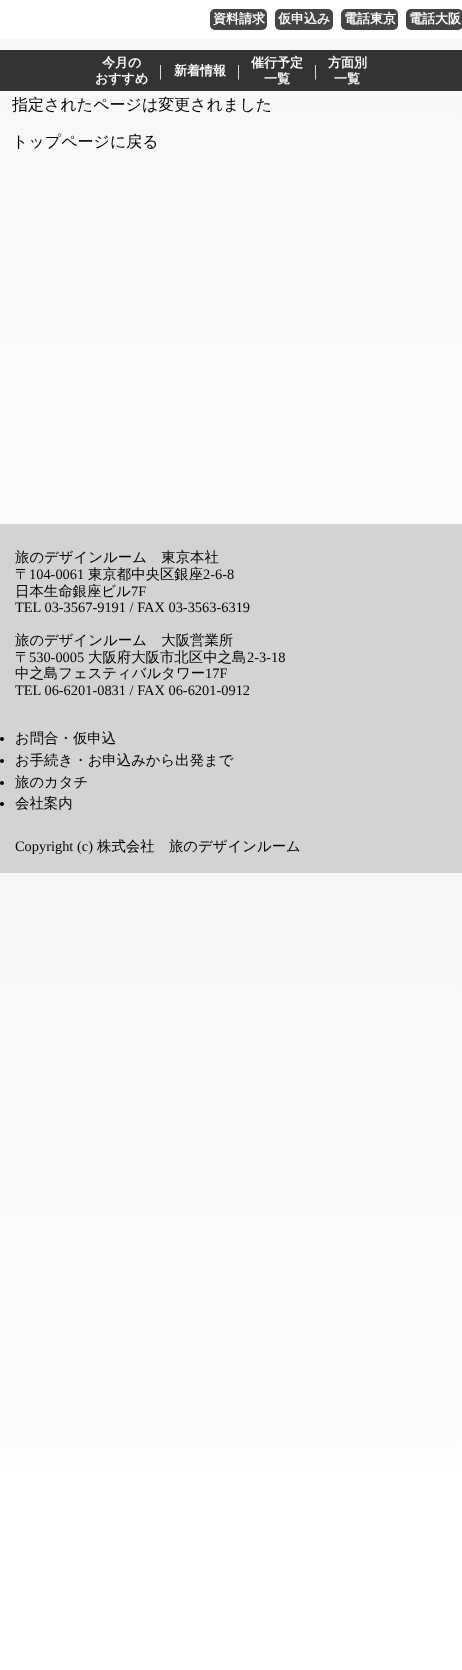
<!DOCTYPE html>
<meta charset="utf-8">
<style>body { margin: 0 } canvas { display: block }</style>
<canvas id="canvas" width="462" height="1670"></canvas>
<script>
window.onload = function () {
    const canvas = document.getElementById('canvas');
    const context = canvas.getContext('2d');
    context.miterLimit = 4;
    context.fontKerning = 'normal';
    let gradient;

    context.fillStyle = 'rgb(255, 255, 255)';
    context.fillRect(0, 0, 462, 1670);
    gradient = context.createLinearGradient(0, 0, 0, 873);
    gradient.addColorStop(0, 'rgb(247, 247, 247)');
    gradient.addColorStop(1, 'rgb(255, 255, 255)');
    context.fillStyle = gradient;
    context.fillRect(0, 39, 462, 485);
    gradient = context.createLinearGradient(0, 873, 0, 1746);
    gradient.addColorStop(0, 'rgb(247, 247, 247)');
    gradient.addColorStop(1, 'rgb(255, 255, 255)');
    context.fillStyle = gradient;
    context.fillRect(0, 873, 462, 600);
    context.fillStyle = 'rgb(68, 68, 68)';
    context.beginPath();
    context.roundRect(210, 9, 57, 21, 5);
    context.fill();
    context.beginPath();
    context.roundRect(275, 9, 58, 21, 5);
    context.fill();
    context.beginPath();
    context.roundRect(341, 9, 57, 21, 5);
    context.fill();
    context.beginPath();
    context.roundRect(406, 9, 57, 21, 5);
    context.fill();
    context.fillStyle = 'rgb(51, 51, 51)';
    context.fillRect(0, 50, 462, 41);
    context.fillStyle = 'rgb(211, 211, 211)';
    context.fillRect(0, 524, 462, 349);
    context.fillStyle = 'rgb(0, 0, 0)';
    context.beginPath();
    context.arc(2, 739, 2, 0, 2 * Math.PI);
    context.fill();
    context.beginPath();
    context.arc(2, 761, 2, 0, 2 * Math.PI);
    context.fill();
    context.beginPath();
    context.arc(2, 783, 2, 0, 2 * Math.PI);
    context.fill();
    context.beginPath();
    context.arc(2, 804, 2, 0, 2 * Math.PI);
    context.fill();
    context.font = 'bold 13px WenQuanYi Zen Hei';
    context.fillStyle = 'rgb(255, 255, 255)';
    context.fillText('資料請求', 213, 23);
    context.fillText('仮申込み', 278, 23);
    context.fillText('電話東京', 344, 23);
    context.fillText('電話大阪', 409, 23);
    context.fillText('今月の', 102, 67);
    context.fillText('おすすめ', 95, 83);
    context.font = '16px Liberation Serif';
    context.fillText('|', 159, 76);
    context.font = 'bold 13px WenQuanYi Zen Hei';
    context.fillText('新着情報', 174, 75);
    context.font = '16px Liberation Serif';
    context.fillText('|', 237, 76);
    context.font = 'bold 13px WenQuanYi Zen Hei';
    context.fillText('催行予定', 251, 67);
    context.fillText('一覧', 264, 83);
    context.font = '16px Liberation Serif';
    context.fillText('|', 314, 76);
    context.font = 'bold 13px WenQuanYi Zen Hei';
    context.fillText('方面別', 328, 67);
    context.fillText('一覧', 334, 83);
    context.font = '500 16px WenQuanYi Zen Hei';
    context.fillStyle = 'rgb(0, 0, 0)';
    context.fillText('指定されたページは変更されました', 12, 110);
    context.fillText('トップページに戻る', 12, 147);
    context.font = '500 14.4px WenQuanYi Zen Hei';
    context.fillText('旅のデザインルーム　東京本社', 15, 562);
    context.fillText('〒', 15, 579);
    context.font = '14.4px Liberation Serif';
    context.fillText('104-0061', 29, 579);
    context.font = '500 14.4px WenQuanYi Zen Hei';
    context.fillText('東京都中央区銀座', 88, 579);
    context.font = '14.4px Liberation Serif';
    context.fillText('2-6-8', 203, 579);
    context.font = '500 14.4px WenQuanYi Zen Hei';
    context.fillText('日本生命銀座ビル', 15, 596);
    context.font = '14.4px Liberation Serif';
    context.fillText('7F', 131, 596);
    context.fillText('TEL 03-3567-9191 / FAX 03-3563-6319', 15, 612);
    context.font = '500 14.4px WenQuanYi Zen Hei';
    context.fillText('旅のデザインルーム　大阪営業所', 15, 645);
    context.fillText('〒', 15, 662);
    context.font = '14.4px Liberation Serif';
    context.fillText('530-0005', 29, 662);
    context.font = '500 14.4px WenQuanYi Zen Hei';
    context.fillText('大阪府大阪市北区中之島', 88, 662);
    context.font = '14.4px Liberation Serif';
    context.fillText('2-3-18', 247, 662);
    context.font = '500 14.4px WenQuanYi Zen Hei';
    context.fillText('中之島フェスティバルタワー', 15, 678);
    context.font = '14.4px Liberation Serif';
    context.fillText('17F', 205, 678);
    context.fillText('TEL 06-6201-0831 / FAX 06-6201-0912', 15, 695);
    context.font = '500 14.4px WenQuanYi Zen Hei';
    context.fillText('お問合・仮申込', 15, 743);
    context.fillText('お手続き・お申込みから出発まで', 15, 765);
    context.fillText('旅のカタチ', 15, 787);
    context.fillText('会社案内', 15, 808);
    context.font = '14.4px Liberation Serif';
    context.fillText('Copyright (c)', 15, 851);
    context.font = '500 14.4px WenQuanYi Zen Hei';
    context.fillText('株式会社　旅のデザインルーム', 97, 851);
};
</script>
